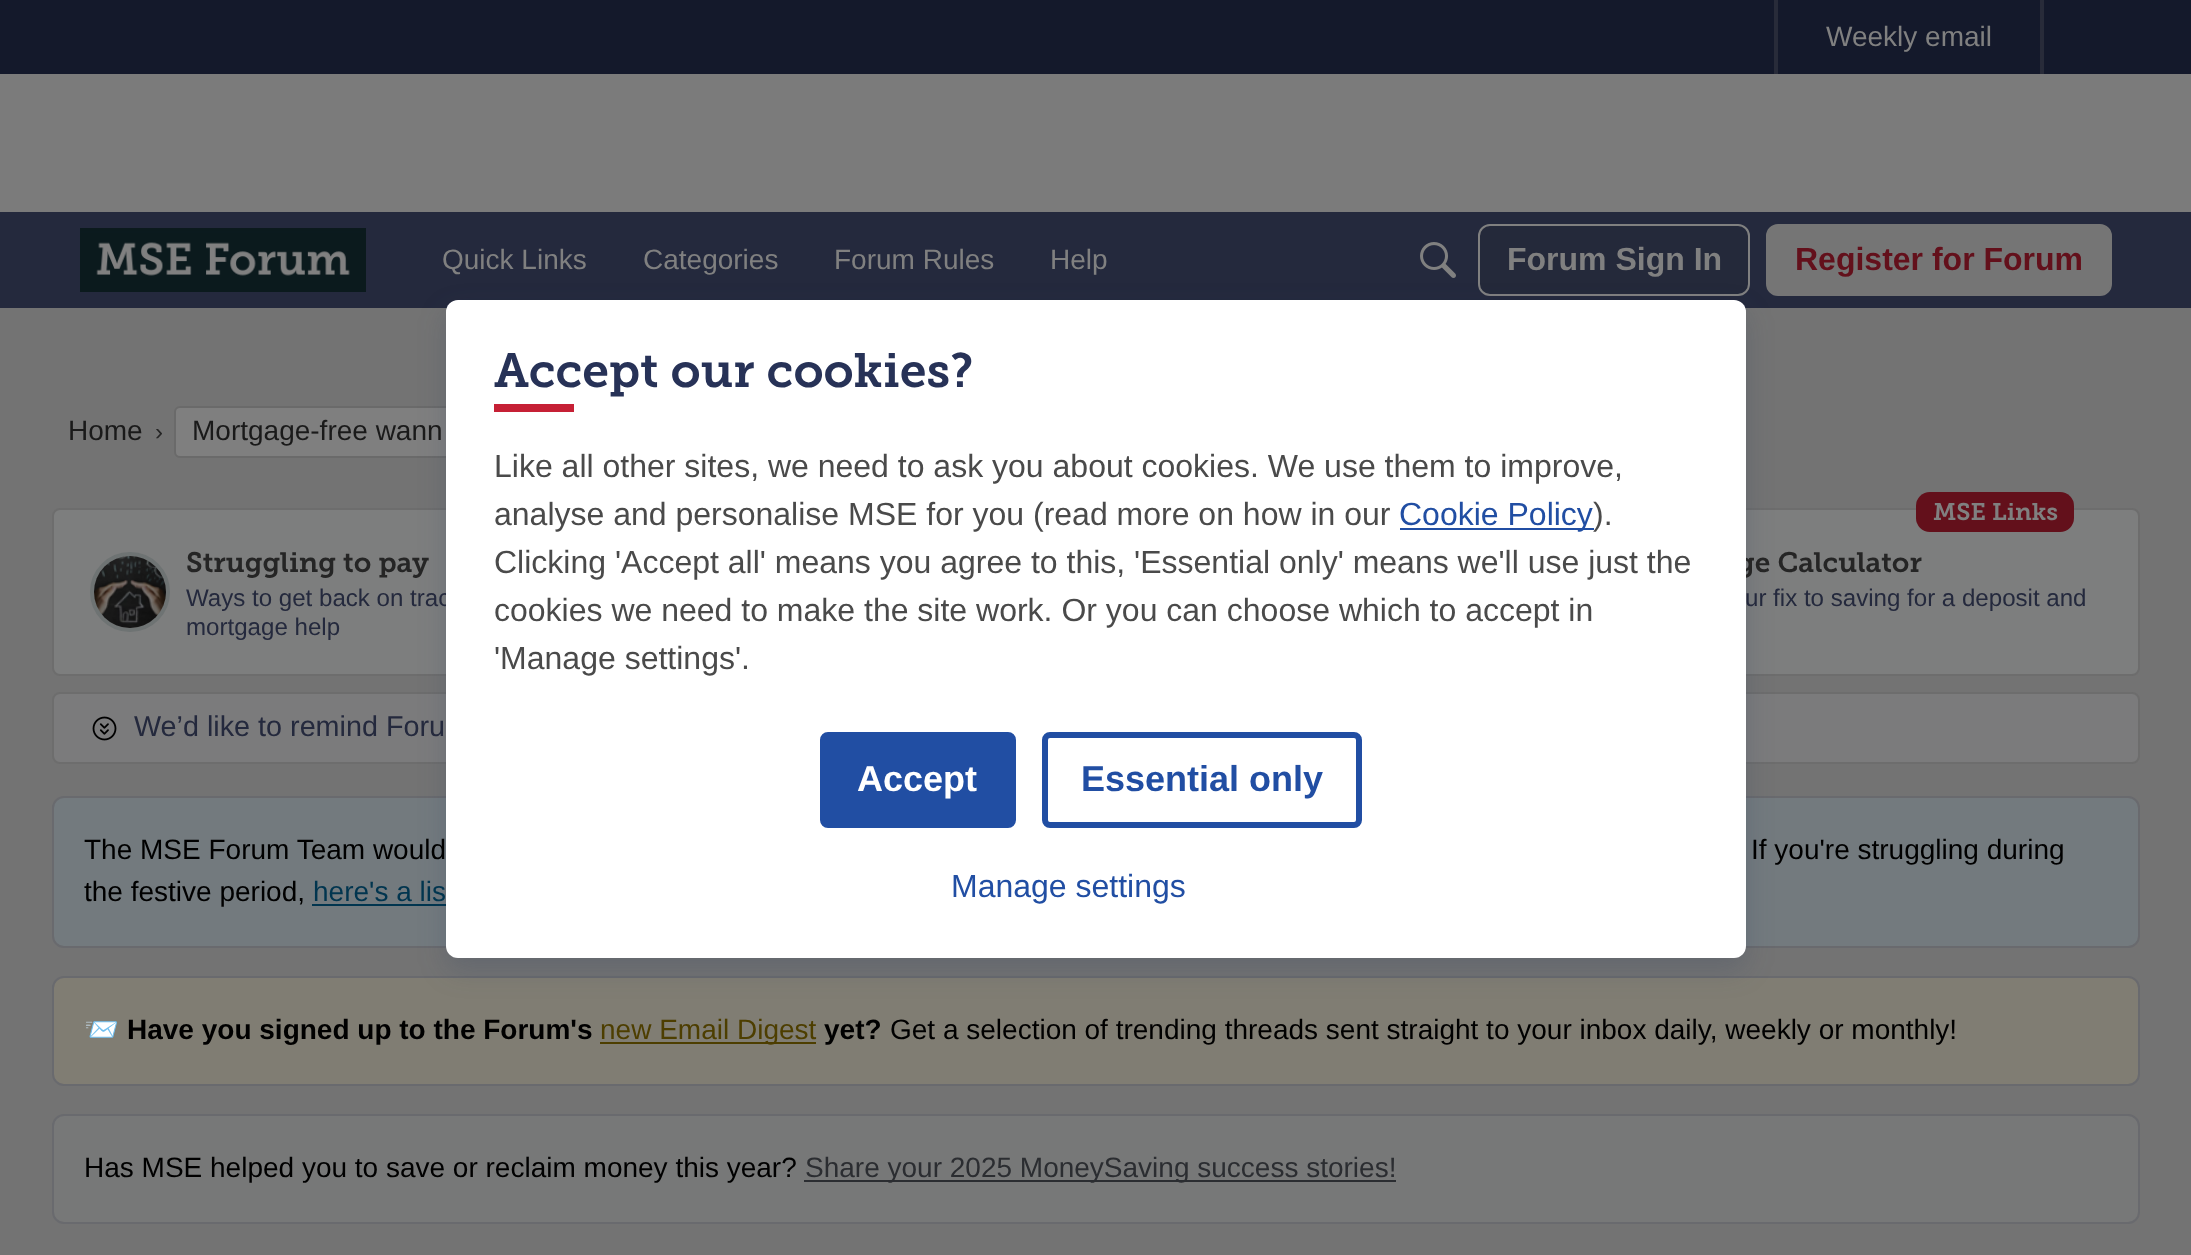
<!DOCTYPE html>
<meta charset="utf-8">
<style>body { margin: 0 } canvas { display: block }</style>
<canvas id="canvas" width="2191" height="1255"></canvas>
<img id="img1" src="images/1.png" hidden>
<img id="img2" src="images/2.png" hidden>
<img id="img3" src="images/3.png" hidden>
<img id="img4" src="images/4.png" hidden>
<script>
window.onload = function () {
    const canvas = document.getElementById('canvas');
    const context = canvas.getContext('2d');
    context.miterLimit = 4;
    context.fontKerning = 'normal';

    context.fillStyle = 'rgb(115, 115, 115)';
    context.fillRect(0, 0, 2191, 1255);
    context.fillStyle = 'rgb(20, 25, 43)';
    context.fillRect(0, 0, 2191, 74);
    context.fillStyle = 'rgb(40, 43, 57)';
    context.fillRect(1774, 0, 4, 74);
    context.fillRect(2040, 0, 4, 74);
    context.fillStyle = 'rgb(123, 123, 123)';
    context.fillRect(0, 74, 2191, 138);
    context.fillStyle = 'rgb(36, 41, 61)';
    context.fillRect(0, 212, 2191, 96);
    context.drawImage(document.getElementById('img1'), 80, 228, 286, 64);
    context.drawImage(document.getElementById('img2'), 1420, 242, 36, 36);
    context.fillStyle = 'rgb(36, 41, 58)';
    context.beginPath();
    context.roundRect(1479, 225, 270, 70, 11);
    context.fill();
    context.strokeStyle = 'rgb(128, 128, 128)';
    context.lineWidth = 2;
    context.stroke();
    context.fillStyle = 'rgb(117, 117, 117)';
    context.beginPath();
    context.roundRect(1767, 225, 344, 70, 11);
    context.fill();
    context.strokeStyle = 'rgb(117, 117, 117)';
    context.stroke();
    context.fillStyle = 'rgb(127, 127, 127)';
    context.beginPath();
    context.roundRect(175, 407, 332, 50, 5);
    context.fill();
    context.strokeStyle = 'rgb(106, 106, 106)';
    context.stroke();
    context.fillStyle = 'rgb(125, 126, 126)';
    context.beginPath();
    context.roundRect(53, 509, 2086, 166, 7);
    context.fill();
    context.strokeStyle = 'rgb(109, 109, 109)';
    context.stroke();
    context.fillStyle = 'rgb(99, 16, 27)';
    context.beginPath();
    context.roundRect(1916, 492, 158, 40, 14);
    context.fill();
    context.fillStyle = 'rgb(106, 106, 106)';
    context.beginPath();
    context.arc(130, 592, 38, 0, 2 * Math.PI);
    context.fill();
    context.strokeStyle = 'rgb(110, 115, 115)';
    context.lineWidth = 4;
    context.stroke();
    context.drawImage(document.getElementById('img3'), 94, 556, 72, 72);
    context.fillStyle = 'rgb(123, 123, 124)';
    context.beginPath();
    context.roundRect(53, 693, 2086, 70, 7);
    context.fill();
    context.strokeStyle = 'rgb(109, 109, 109)';
    context.lineWidth = 2;
    context.stroke();
    context.drawImage(document.getElementById('img4'), 92, 716, 25, 25);
    context.fillStyle = 'rgb(115, 122, 126)';
    context.beginPath();
    context.roundRect(53, 797, 2086, 150, 11);
    context.fill();
    context.strokeStyle = 'rgb(105, 106, 110)';
    context.stroke();
    context.fillStyle = 'rgb(1, 53, 79)';
    context.fillRect(312, 904, 134, 2);
    context.fillStyle = 'rgb(128, 125, 115)';
    context.beginPath();
    context.roundRect(53, 977, 2086, 108, 11);
    context.fill();
    context.stroke();
    context.fillStyle = 'rgb(77, 62, 0)';
    context.fillRect(600, 1042, 216, 2);
    context.fillStyle = 'rgb(119, 120, 120)';
    context.beginPath();
    context.roundRect(53, 1115, 2086, 108, 11);
    context.fill();
    context.stroke();
    context.fillStyle = 'rgb(43, 45, 49)';
    context.fillRect(804, 1180, 592, 2);
    context.fillStyle = 'rgba(33, 57, 92, 0.2)';
    context.filter = 'blur(14px)';
    context.beginPath();
    context.roundRect(446, 312, 1300, 658, 12);
    context.fill();
    context.filter = 'none';
    context.font = '28px Liberation Sans';
    context.fillStyle = 'rgb(128, 128, 128)';
    context.fillText('Weekly email', 1826, 46);
    context.fillText('Quick Links', 442, 269);
    context.fillText('Categories', 643, 269);
    context.fillText('Forum Rules', 834, 269);
    context.fillText('Help', 1050, 269);
    context.font = 'bold 32px Liberation Sans';
    context.fillText('Forum Sign In', 1507, 270);
    context.fillStyle = 'rgb(99, 16, 27)';
    context.fillText('Register for Forum', 1795, 270);
    context.font = '28px Liberation Sans';
    context.fillStyle = 'rgb(26, 26, 26)';
    context.fillText('Home', 68, 440);
    context.font = '24px Liberation Sans';
    context.fillStyle = 'rgb(37, 37, 37)';
    context.fillText('›', 155, 440);
    context.font = '28px Liberation Sans';
    context.fillStyle = 'rgb(26, 26, 26)';
    context.fillText('Mortgage-free wann', 192, 440);
    context.font = '600 24px "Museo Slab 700"';
    context.fillStyle = 'rgb(128, 128, 128)';
    context.fillText('MSE Links', 1933, 520);
    context.font = '600 28px "Museo Slab 700"';
    context.fillStyle = 'rgb(37, 37, 37)';
    context.fillText('Struggling to pay', 186, 572);
    context.font = '24.1px Liberation Sans';
    context.fillStyle = 'rgb(36, 41, 61)';
    context.fillText('Ways to get back on trac', 186, 606);
    context.fillText('mortgage help', 186, 635);
    context.font = '600 28px "Museo Slab 700"';
    context.fillStyle = 'rgb(37, 37, 37)';
    context.fillText('ge Calculator', 1737, 572);
    context.font = '24.1px Liberation Sans';
    context.fillStyle = 'rgb(36, 41, 61)';
    context.fillText('ur fix to saving for a deposit and', 1745, 606);
    context.font = '28.75px Liberation Sans';
    context.fillText('We’d like to remind Foru', 134, 736);
    context.font = '28px Liberation Sans';
    context.fillStyle = 'rgb(0, 0, 0)';
    context.fillText('The MSE Forum Team would', 84, 859);
    context.fillText('If you\'re struggling during', 1751, 859);
    context.fillText('the festive period,', 84, 901);
    context.fillStyle = 'rgb(1, 53, 79)';
    context.fillText('here\'s a lis', 313, 901);
    context.font = '28px Noto Color Emoji';
    context.fillStyle = 'rgb(0, 0, 0)';
    context.fillText('📨', 84, 1039);
    context.font = 'bold 28px Liberation Sans';
    context.fillText('Have you signed up to the Forum\'s', 127, 1039);
    context.font = '28px Liberation Sans';
    context.fillStyle = 'rgb(77, 62, 0)';
    context.fillText('new Email Digest', 600, 1039);
    context.font = 'bold 28px Liberation Sans';
    context.fillStyle = 'rgb(0, 0, 0)';
    context.fillText('yet?', 824, 1039);
    context.font = '28px Liberation Sans';
    context.fillText('Get a selection of trending threads sent straight to your inbox daily, weekly or monthly!', 890, 1039);
    context.fillText('Has MSE helped you to save or reclaim money this year?', 84, 1177);
    context.fillStyle = 'rgb(43, 45, 49)';
    context.fillText('Share your 2025 MoneySaving success stories!', 805, 1177);
    context.fillStyle = 'rgb(255, 255, 255)';
    context.beginPath();
    context.roundRect(446, 300, 1300, 658, 12);
    context.fill();
    context.font = '48px Museo Slab';
    context.fillStyle = 'rgb(39, 50, 87)';
    context.fillText('Accept our cookies?', 494, 387);
    context.fillStyle = 'rgb(198, 32, 53)';
    context.fillRect(494, 404, 80, 8);
    context.font = '32px Liberation Sans';
    context.fillStyle = 'rgb(74, 74, 74)';
    context.fillText('Like all other sites, we need to ask you about cookies. We use them to improve,', 494, 477);
    context.fillText('analyse and personalise MSE for you (read more on how in our', 494, 525);
    context.fillStyle = 'rgb(33, 78, 163)';
    context.fillRect(1400, 528, 194, 2);
    context.fillText('Cookie Policy', 1399, 525);
    context.fillStyle = 'rgb(74, 74, 74)';
    context.fillText(').', 1593, 525);
    context.fillText('Clicking \'Accept all\' means you agree to this, \'Essential only\' means we\'ll use just the', 494, 573);
    context.fillText('cookies we need to make the site work. Or you can choose which to accept in', 494, 621);
    context.fillText('\'Manage settings\'.', 494, 669);
    context.fillStyle = 'rgb(33, 78, 163)';
    context.beginPath();
    context.roundRect(823, 735, 190, 90, 5);
    context.fill();
    context.strokeStyle = 'rgb(33, 78, 163)';
    context.lineWidth = 6;
    context.stroke();
    context.font = 'bold 36px Liberation Sans';
    context.fillStyle = 'rgb(255, 255, 255)';
    context.fillText('Accept', 857, 791);
    context.beginPath();
    context.roundRect(1045, 735, 314, 90, 5);
    context.stroke();
    context.fillStyle = 'rgb(33, 78, 163)';
    context.fillText('Essential only', 1081, 791);
    context.font = '32px Liberation Sans';
    context.fillText('Manage settings', 951, 897);
};
</script>
